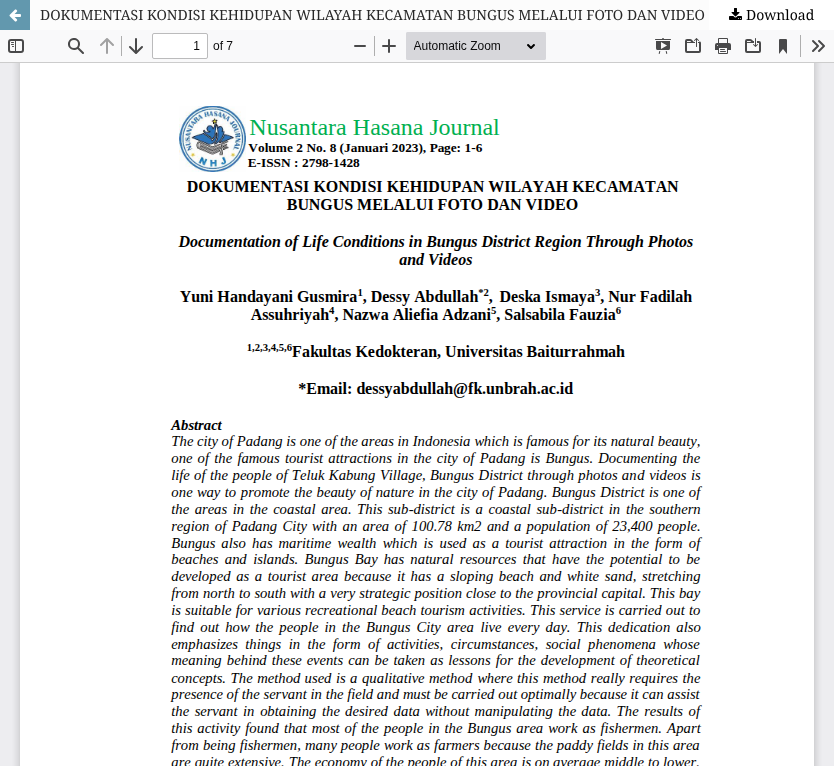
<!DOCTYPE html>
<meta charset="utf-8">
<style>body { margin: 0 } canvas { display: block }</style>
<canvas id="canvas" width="834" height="766"></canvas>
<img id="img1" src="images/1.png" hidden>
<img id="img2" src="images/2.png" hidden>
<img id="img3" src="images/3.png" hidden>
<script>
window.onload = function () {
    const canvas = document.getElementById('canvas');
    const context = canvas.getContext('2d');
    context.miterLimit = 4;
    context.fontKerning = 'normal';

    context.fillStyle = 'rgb(255, 255, 255)';
    context.fillRect(0, 0, 834, 766);
    context.fillStyle = 'rgb(252, 252, 252)';
    context.fillRect(30, 0, 679, 30);
    context.fillStyle = 'rgb(98, 152, 174)';
    context.fillRect(0, 0, 30, 30);
    context.drawImage(document.getElementById('img1'), 9, 9, 12, 13);
    context.drawImage(document.getElementById('img2'), 729, 8, 13, 12);
    context.drawImage(document.getElementById('img3'), 0, 30, 834, 736);
    context.font = '14px Noto Serif';
    context.fillStyle = 'rgb(40, 40, 40)';
    context.fillText('DOKUMENTASI KONDISI KEHIDUPAN WILAYAH KECAMATAN BUNGUS MELALUI FOTO DAN VIDEO', 40, 20);
    context.fillStyle = 'rgb(0, 0, 0)';
    context.fillText('Download', 746, 20);
};
</script>
